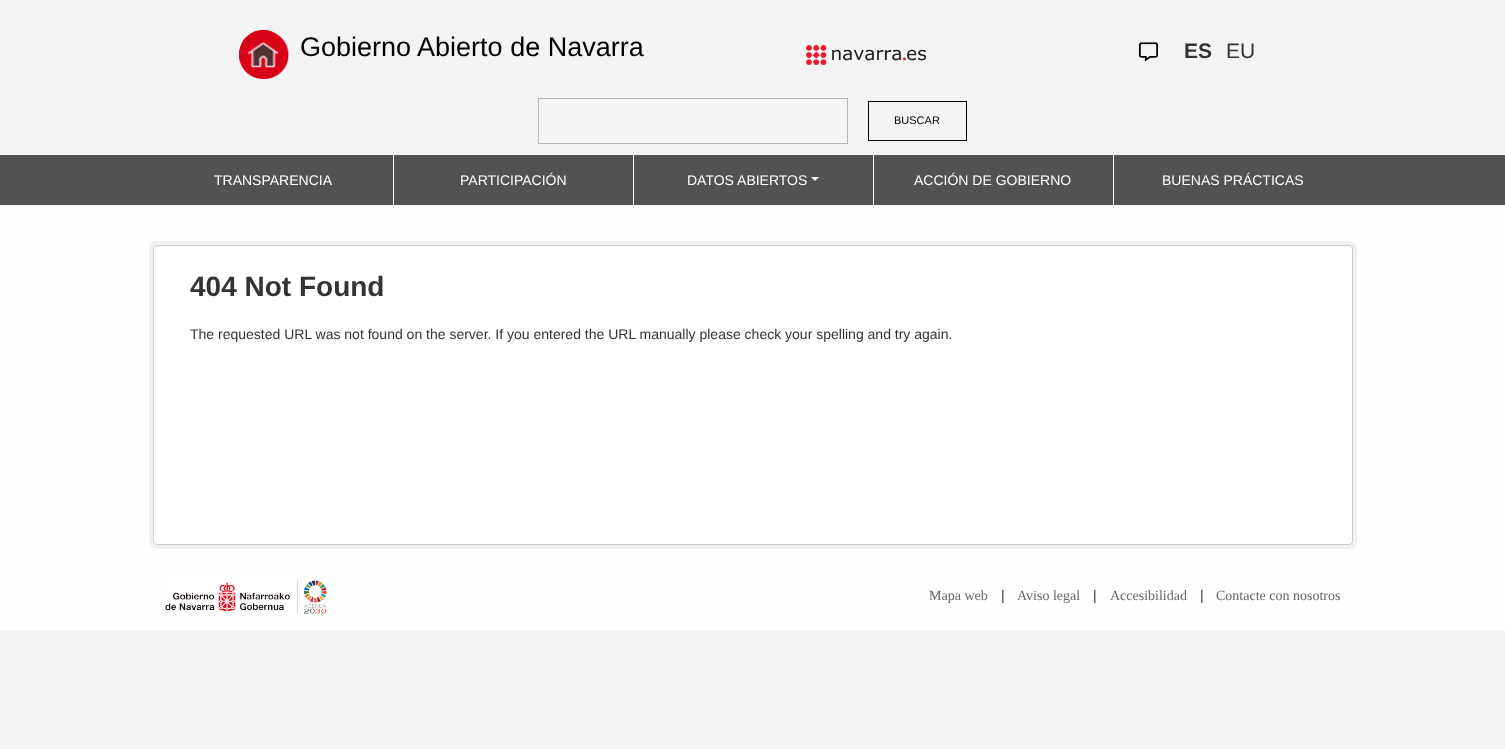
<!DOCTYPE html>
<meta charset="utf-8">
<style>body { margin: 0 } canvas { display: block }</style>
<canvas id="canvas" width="1505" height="749"></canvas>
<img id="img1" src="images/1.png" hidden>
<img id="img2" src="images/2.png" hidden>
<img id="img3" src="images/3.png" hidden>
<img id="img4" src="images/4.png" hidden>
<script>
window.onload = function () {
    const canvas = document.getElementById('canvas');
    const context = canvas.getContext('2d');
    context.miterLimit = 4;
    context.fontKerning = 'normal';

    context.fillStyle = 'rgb(244, 244, 244)';
    context.fillRect(0, 0, 1505, 749);
    context.drawImage(document.getElementById('img1'), 239, 30, 50, 49);
    context.drawImage(document.getElementById('img2'), 806, 45, 120, 20);
    context.drawImage(document.getElementById('img3'), 1138, 42, 20, 20);
    context.strokeStyle = 'rgb(182, 182, 182)';
    context.strokeRect(538.5, 98.5, 309, 45);
    context.strokeStyle = 'rgb(0, 0, 0)';
    context.strokeRect(868.5, 101.5, 98, 39);
    context.fillStyle = 'rgb(82, 82, 82)';
    context.fillRect(0, 155, 1505, 50);
    context.fillStyle = 'rgb(255, 255, 255)';
    context.fillRect(393, 155, 1, 50);
    context.fillRect(633, 155, 1, 50);
    context.beginPath();
    context.moveTo(811, 177);
    context.lineTo(819, 177);
    context.lineTo(815, 181);
    context.closePath();
    context.fill();
    context.fillRect(873, 155, 1, 50);
    context.fillRect(1113, 155, 1, 50);
    context.fillStyle = 'rgb(254, 254, 254)';
    context.fillRect(0, 205, 1505, 425);
    context.beginPath();
    context.roundRect(151, 243, 1204, 304, 6);
    context.strokeStyle = 'rgb(241, 241, 241)';
    context.lineWidth = 4;
    context.stroke();
    context.fillStyle = 'rgb(255, 255, 255)';
    context.beginPath();
    context.roundRect(153.5, 245.5, 1199, 299, 3.5);
    context.fill();
    context.strokeStyle = 'rgb(204, 204, 204)';
    context.lineWidth = 1;
    context.stroke();
    context.drawImage(document.getElementById('img4'), 165, 580, 162, 34);
    context.font = '27px Liberation Sans';
    context.fillStyle = 'rgb(0, 0, 0)';
    context.fillText('Gobierno Abierto de Navarra', 300, 56);
    context.font = 'bold 21px Liberation Sans';
    context.fillStyle = 'rgb(51, 51, 51)';
    context.fillText('ES', 1184, 58);
    context.font = '21px Liberation Sans';
    context.fillText('EU', 1226, 58);
    context.font = '11px Liberation Sans';
    context.fillStyle = 'rgb(0, 0, 0)';
    context.fillText('BUSCAR', 894, 124);
    context.font = '14px Liberation Sans';
    context.fillStyle = 'rgb(255, 255, 255)';
    context.fillText('TRANSPARENCIA', 214, 185);
    context.fillText('PARTICIPACIÓN', 460, 185);
    context.fillText('DATOS ABIERTOS', 687, 185);
    context.fillText('ACCIÓN DE GOBIERNO', 914, 185);
    context.fillText('BUENAS PRÁCTICAS', 1162, 185);
    context.font = 'bold 28px Liberation Sans';
    context.fillStyle = 'rgb(51, 51, 51)';
    context.fillText('404 Not Found', 190, 296);
    context.font = '14px Liberation Sans';
    context.fillText('The requested URL was not found on the server. If you entered the URL manually please check your spelling and try again.', 190, 339);
    context.font = '14px Liberation Serif';
    context.fillStyle = 'rgb(102, 102, 102)';
    context.fillText('Mapa web', 929, 600);
    context.font = '14px Liberation Sans';
    context.fillStyle = 'rgb(51, 51, 51)';
    context.fillText('|', 1001, 600);
    context.font = '14px Liberation Serif';
    context.fillStyle = 'rgb(102, 102, 102)';
    context.fillText('Aviso legal', 1017, 600);
    context.font = '14px Liberation Sans';
    context.fillStyle = 'rgb(51, 51, 51)';
    context.fillText('|', 1093, 600);
    context.font = '14px Liberation Serif';
    context.fillStyle = 'rgb(102, 102, 102)';
    context.fillText('Accesibilidad', 1110, 600);
    context.font = '14px Liberation Sans';
    context.fillStyle = 'rgb(51, 51, 51)';
    context.fillText('|', 1200, 600);
    context.font = '14px Liberation Serif';
    context.fillStyle = 'rgb(102, 102, 102)';
    context.fillText('Contacte con nosotros', 1216, 600);
};
</script>
